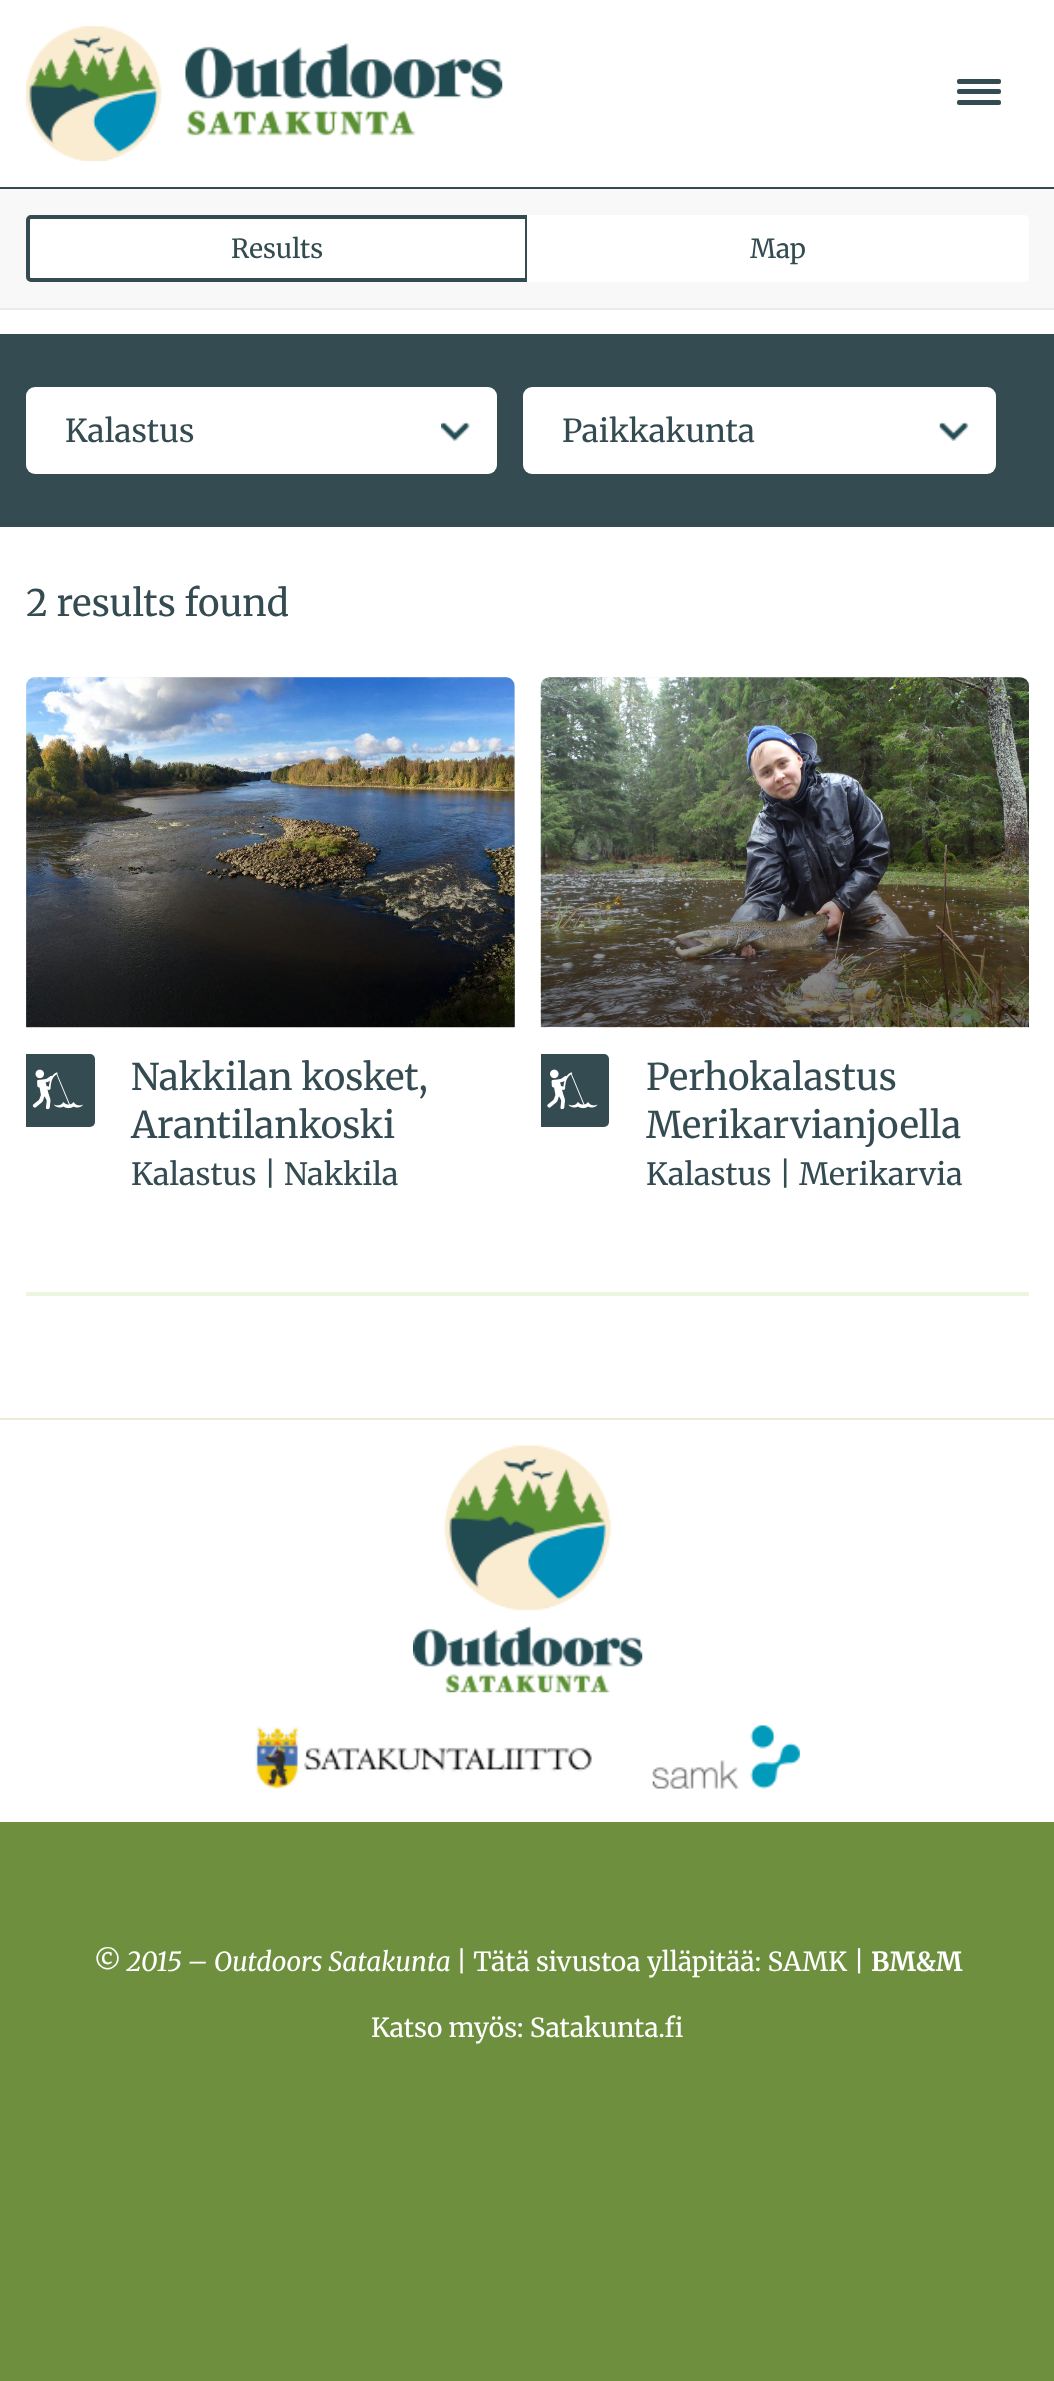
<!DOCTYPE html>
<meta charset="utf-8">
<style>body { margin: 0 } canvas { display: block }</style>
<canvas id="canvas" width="1054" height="2381"></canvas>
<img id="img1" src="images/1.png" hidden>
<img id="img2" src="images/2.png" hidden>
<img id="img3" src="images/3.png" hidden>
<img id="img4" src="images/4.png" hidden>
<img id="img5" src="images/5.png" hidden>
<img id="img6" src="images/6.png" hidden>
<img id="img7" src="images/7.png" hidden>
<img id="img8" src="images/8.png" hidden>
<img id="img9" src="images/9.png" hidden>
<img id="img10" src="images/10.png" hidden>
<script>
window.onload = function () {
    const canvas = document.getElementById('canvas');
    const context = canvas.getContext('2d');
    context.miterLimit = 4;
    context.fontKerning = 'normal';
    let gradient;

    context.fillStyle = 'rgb(109, 143, 62)';
    context.fillRect(0, 0, 1054, 2381);
    context.fillStyle = 'rgb(255, 255, 255)';
    context.fillRect(0, 0, 1054, 1418);
    context.fillStyle = 'rgb(52, 75, 82)';
    context.fillRect(0, 187, 1054, 2);
    context.drawImage(document.getElementById('img1'), 26, 26, 477, 135);
    context.beginPath();
    context.roundRect(957, 79, 44, 5, 2);
    context.fill();
    context.beginPath();
    context.roundRect(957, 89, 44, 5, 2);
    context.fill();
    context.beginPath();
    context.roundRect(957, 100, 44, 5, 2);
    context.fill();
    context.fillStyle = 'rgb(235, 235, 235)';
    context.fillRect(0, 308, 1054, 2);
    context.fillStyle = 'rgb(248, 248, 248)';
    context.fillRect(0, 189, 1054, 119);
    context.fillStyle = 'rgb(255, 255, 255)';
    context.beginPath();
    context.roundRect(28, 217, 499, 63, [3, 0, 0, 3]);
    context.fill();
    context.strokeStyle = 'rgb(52, 75, 82)';
    context.lineWidth = 4;
    context.stroke();
    context.beginPath();
    context.roundRect(527, 215, 502, 67, [0, 5, 5, 0]);
    context.fill();
    context.fillStyle = 'rgb(52, 75, 82)';
    context.fillRect(0, 334, 1054, 193);
    context.fillStyle = 'rgb(255, 255, 255)';
    context.beginPath();
    context.roundRect(26, 387, 471, 87, 9);
    context.fill();
    context.drawImage(document.getElementById('img2'), 441, 421, 29, 20);
    context.beginPath();
    context.roundRect(523, 387, 473, 87, 9);
    context.fill();
    context.drawImage(document.getElementById('img3'), 939, 421, 30, 20);
    context.fillStyle = 'rgb(225, 232, 246)';
    context.beginPath();
    context.roundRect(26, 677, 489, 350, [9, 9, 0, 0]);
    context.fill();
    context.drawImage(document.getElementById('img4'), 26, 677, 489, 351);
    gradient = context.createLinearGradient(270, 677, 270, 1027);
    gradient.addColorStop(0.3, 'rgba(0, 0, 0, 0)');
    gradient.addColorStop(0.9, 'rgba(0, 0, 0, 0.5)');
    context.fillStyle = gradient;
    context.fillRect(26, 791, 489, 236);
    context.fillStyle = 'rgb(52, 75, 82)';
    context.beginPath();
    context.roundRect(26, 1054, 69, 73, [0, 5, 5, 0]);
    context.fill();
    context.drawImage(document.getElementById('img5'), 32, 1069, 51, 41);
    context.fillStyle = 'rgb(225, 232, 246)';
    context.beginPath();
    context.roundRect(541, 677, 488, 350, [9, 9, 0, 0]);
    context.fill();
    context.drawImage(document.getElementById('img6'), 540, 677, 489, 351);
    gradient = context.createLinearGradient(785, 677, 785, 1027);
    gradient.addColorStop(0.3, 'rgba(0, 0, 0, 0)');
    gradient.addColorStop(0.9, 'rgba(0, 0, 0, 0.5)');
    context.fillStyle = gradient;
    context.fillRect(541, 791, 488, 236);
    context.fillStyle = 'rgb(52, 75, 82)';
    context.beginPath();
    context.roundRect(541, 1054, 68, 73, [0, 5, 5, 0]);
    context.fill();
    context.drawImage(document.getElementById('img7'), 547, 1069, 51, 41);
    context.fillStyle = 'rgb(235, 246, 225)';
    context.fillRect(26, 1292, 1003, 4);
    context.fillStyle = 'rgb(255, 255, 255)';
    context.fillRect(0, 1420, 1054, 402);
    context.fillStyle = 'rgb(240, 234, 217)';
    context.fillRect(0, 1418, 1054, 2);
    context.drawImage(document.getElementById('img8'), 413, 1445, 230, 248);
    context.drawImage(document.getElementById('img9'), 255, 1726, 337, 63);
    context.drawImage(document.getElementById('img10'), 652, 1725, 148, 64);
    context.font = '26.25px Merriweather';
    context.fillStyle = 'rgb(52, 75, 82)';
    context.fillText('Results', 231, 258);
    context.fillText('Map', 750, 258);
    context.font = '31.5px Merriweather';
    context.fillText('Kalastus', 65, 442);
    context.fillText('Paikkakunta', 562, 442);
    context.font = '36.75px Merriweather';
    context.fillText('2 results found', 26, 616);
    context.fillText('Nakkilan kosket,', 131, 1090);
    context.fillText('Arantilankoski', 131, 1138);
    context.font = '30.6px Merriweather';
    context.fillText('Kalastus | Nakkila', 131, 1185);
    context.font = '36.75px Merriweather';
    context.fillText('Perhokalastus', 646, 1090);
    context.fillText('Merikarvianjoella', 646, 1138);
    context.font = '30.6px Merriweather';
    context.fillText('Kalastus | Merikarvia', 646, 1185);
    context.font = 'italic 300 26.25px Merriweather';
    context.fillStyle = 'rgb(255, 255, 255)';
    context.fillText('© 2015 – Outdoors Satakunta', 93, 1971);
    context.font = '26.25px Merriweather';
    context.fillText('| Tätä sivustoa ylläpitää: SAMK |', 456, 1971);
    context.font = 'bold 26.25px Merriweather';
    context.fillText('BM&M', 871, 1971);
    context.font = '26.25px Merriweather';
    context.fillText('Katso myös: Satakunta.fi', 371, 2037);
};
</script>
